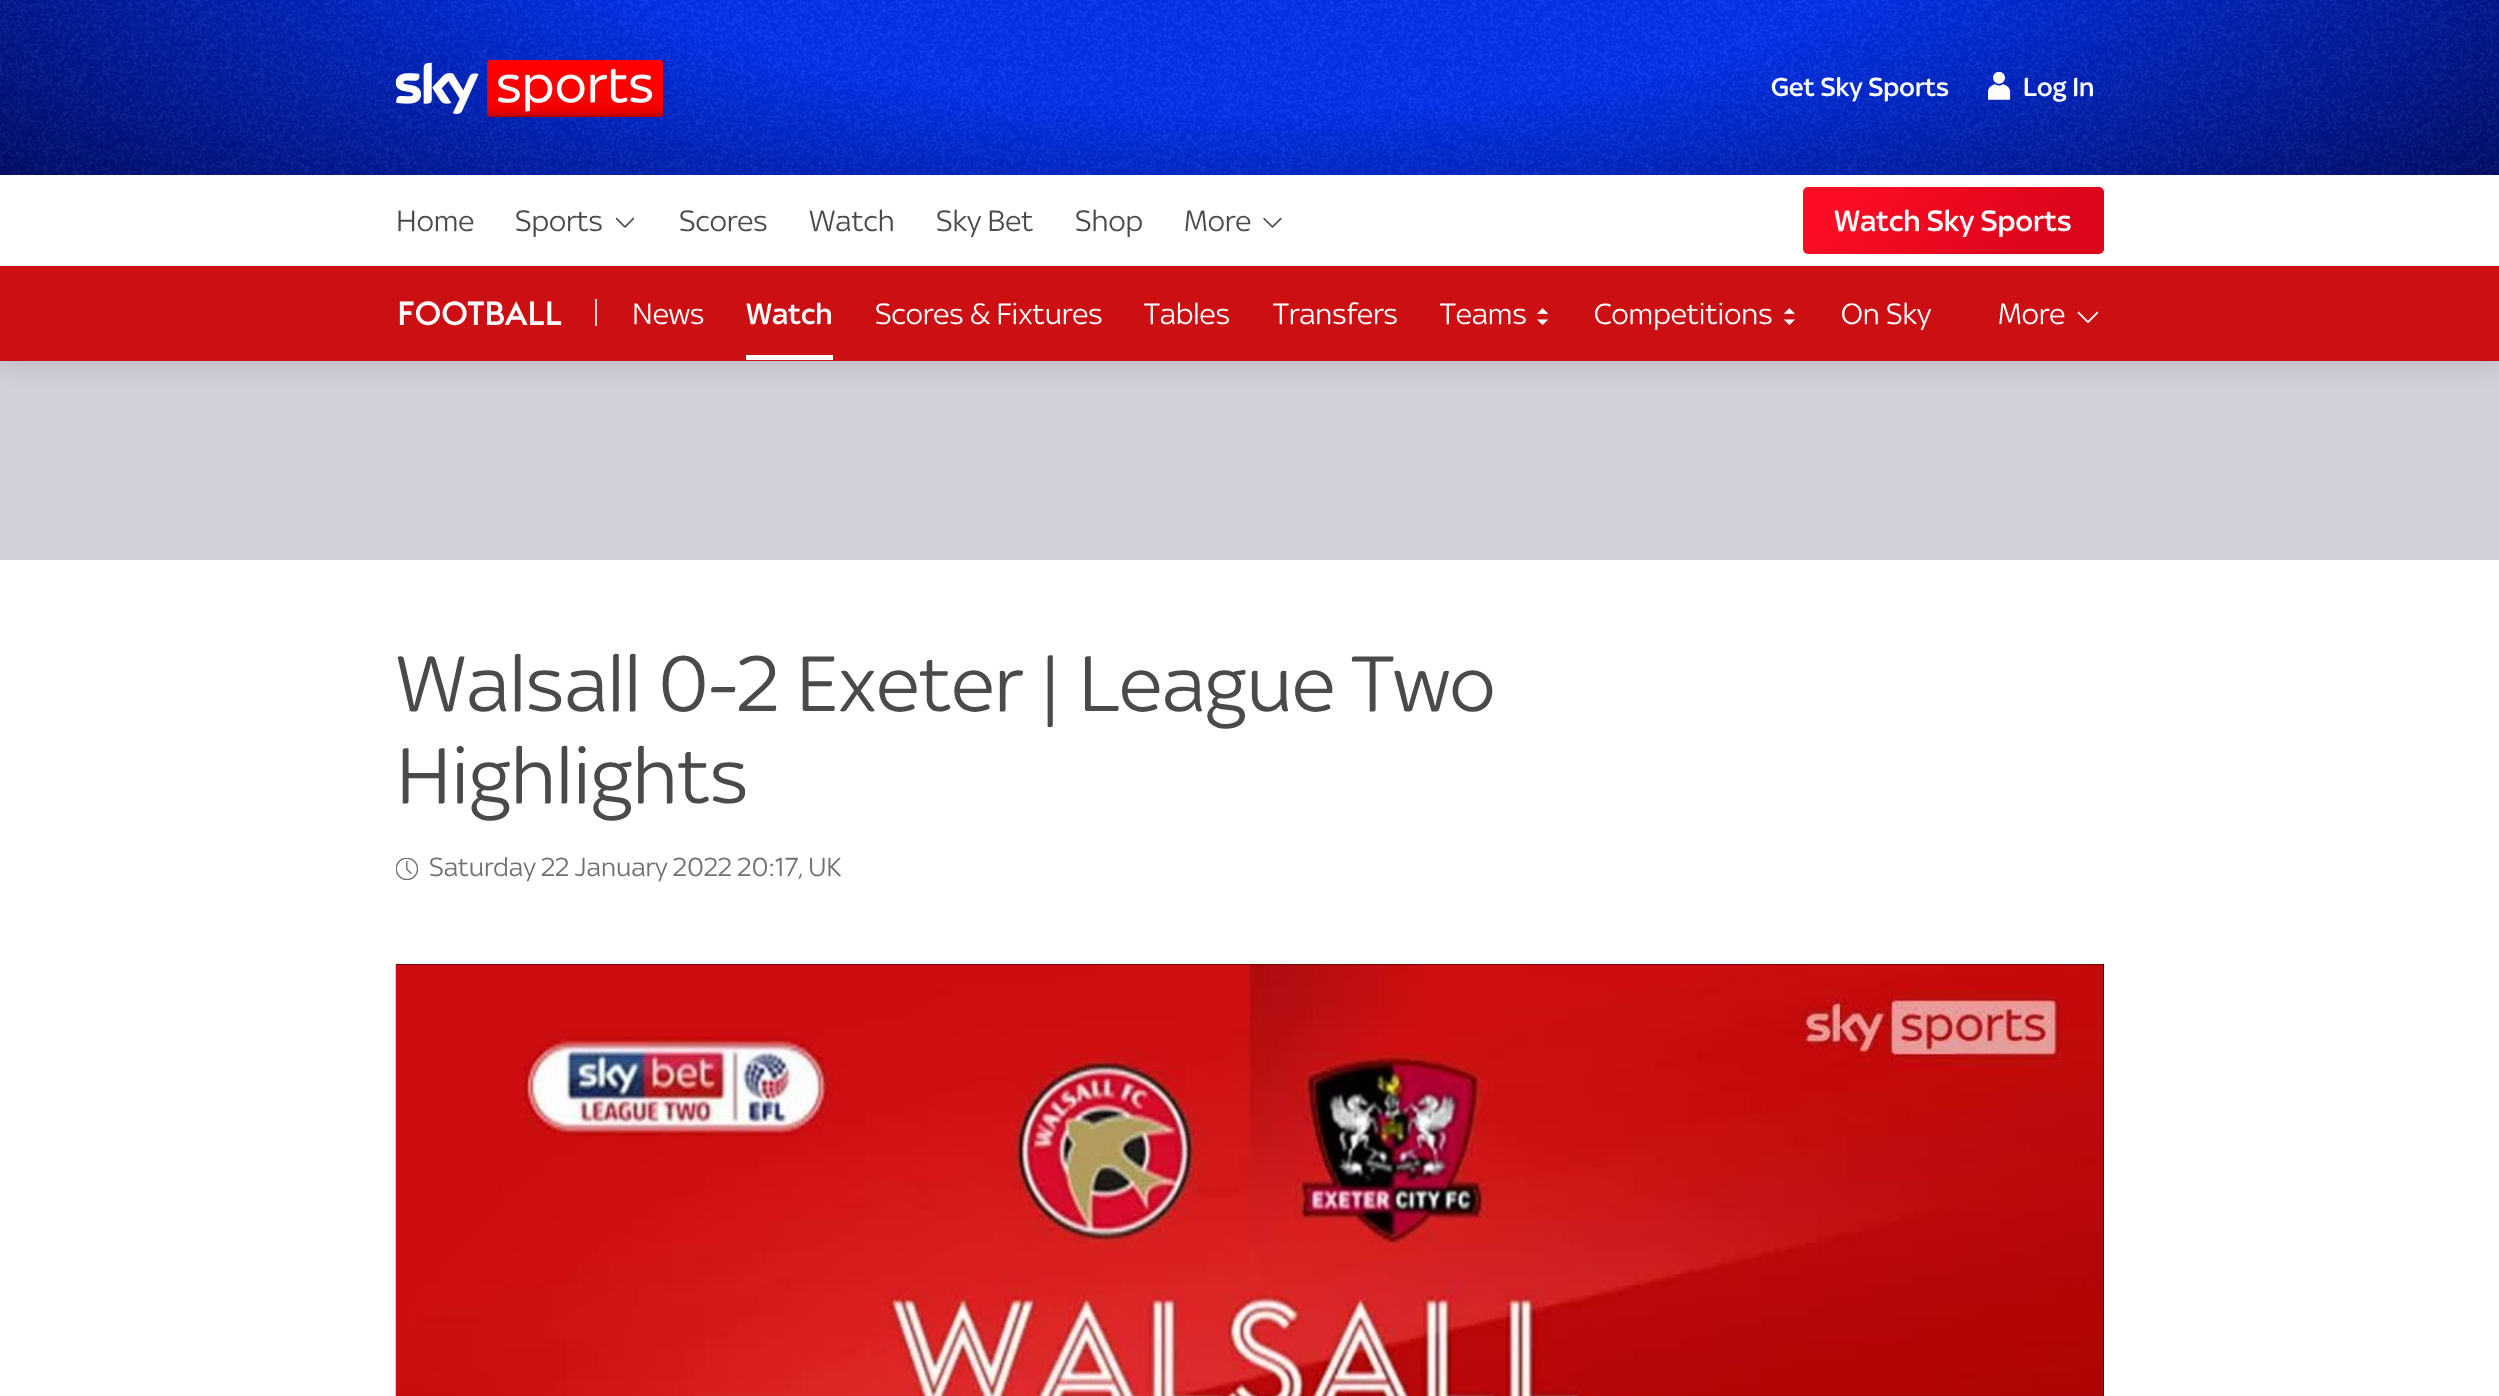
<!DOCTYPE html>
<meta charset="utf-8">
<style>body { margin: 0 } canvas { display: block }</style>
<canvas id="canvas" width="2499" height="1396"></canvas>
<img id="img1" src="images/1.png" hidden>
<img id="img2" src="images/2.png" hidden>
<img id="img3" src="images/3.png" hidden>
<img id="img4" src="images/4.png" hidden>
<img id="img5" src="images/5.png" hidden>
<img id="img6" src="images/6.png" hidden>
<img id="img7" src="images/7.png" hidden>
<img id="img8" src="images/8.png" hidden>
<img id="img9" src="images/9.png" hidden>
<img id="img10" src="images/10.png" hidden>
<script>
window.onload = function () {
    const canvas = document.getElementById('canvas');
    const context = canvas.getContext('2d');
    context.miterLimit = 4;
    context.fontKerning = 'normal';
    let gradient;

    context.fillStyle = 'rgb(255, 255, 255)';
    context.fillRect(0, 0, 2499, 1396);
    context.fillStyle = 'rgb(209, 207, 216)';
    context.fillRect(0, 361, 2499, 199);
    context.fillStyle = 'rgba(0, 0, 0, 0.14)';
    context.filter = 'blur(13px)';
    context.beginPath();
    context.rect(0, 2, 2499, 360);
    context.fill();
    context.filter = 'none';
    context.fillStyle = 'rgb(255, 255, 255)';
    context.fillRect(0, 175, 2499, 91);
    gradient = context.createRadialGradient(1250, -249.88, 0, 1250, -249.88, 1767);
    gradient.addColorStop(0.36, 'rgb(3, 50, 239)');
    gradient.addColorStop(1, 'rgb(0, 2, 68)');
    context.fillStyle = gradient;
    context.beginPath();
    context.rect(0, 0, 2499, 175);
    context.save();
    context.clip();
    context.scale(1, 495 / 1767);
    context.fillRect(0, 0, 2499, 4984);
    context.restore();
    context.drawImage(document.getElementById('img1'), 0, 0, 2499, 175);
    context.drawImage(document.getElementById('img2'), 396, 60, 267, 57);
    context.drawImage(document.getElementById('img3'), 1988, 72, 23, 28);
    context.drawImage(document.getElementById('img4'), 615, 217, 20, 11);
    context.drawImage(document.getElementById('img5'), 1263, 217, 19, 11);
    gradient = context.createLinearGradient(1853, 131, 2053, 310);
    gradient.addColorStop(0.15, 'rgb(252, 13, 37)');
    gradient.addColorStop(0.8, 'rgb(220, 5, 27)');
    context.fillStyle = gradient;
    context.beginPath();
    context.roundRect(1803, 187, 301, 67, 5);
    context.fill();
    context.fillStyle = 'rgb(204, 15, 19)';
    context.fillRect(0, 266, 2499, 95);
    context.fillStyle = 'rgb(245, 207, 208)';
    context.fillRect(595, 299, 2, 27);
    context.fillStyle = 'rgb(255, 255, 255)';
    context.fillRect(746, 355, 87, 5);
    context.drawImage(document.getElementById('img6'), 1537, 308, 12, 17);
    context.drawImage(document.getElementById('img7'), 1783, 308, 12, 17);
    context.drawImage(document.getElementById('img8'), 2077, 311, 22, 12);
    context.drawImage(document.getElementById('img9'), 396, 858, 22, 22);
    context.fillStyle = 'rgb(0, 0, 0)';
    context.fillRect(396, 964, 1708, 432);
    context.drawImage(document.getElementById('img10'), 395, 964, 1709, 432);
    context.font = '500 28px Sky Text';
    context.fillStyle = 'rgb(255, 255, 255)';
    context.fillText('Get Sky Sports', 1771, 96);
    context.fillText('Log In', 2023, 96);
    context.font = '31.5px Sky Text';
    context.fillStyle = 'rgb(74, 74, 74)';
    context.fillText('Home', 396, 231);
    context.fillText('Sports', 515, 231);
    context.fillText('Scores', 679, 231);
    context.fillText('Watch', 809, 231);
    context.fillText('Sky Bet', 936, 231);
    context.fillText('Shop', 1075, 231);
    context.fillText('More', 1184, 231);
    context.font = '500 31.5px Sky Text';
    context.fillStyle = 'rgb(255, 255, 255)';
    context.fillText('Watch Sky Sports', 1834, 231);
    context.font = '500 33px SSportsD';
    context.fillText('Football', 397, 325);
    context.font = '31.5px Sky Text';
    context.fillText('News', 632, 324);
    context.font = '500 31.5px Sky Text';
    context.fillText('Watch', 746, 324);
    context.font = '31.5px Sky Text';
    context.fillText('Scores & Fixtures', 875, 324);
    context.fillText('Tables', 1144, 324);
    context.fillText('Transfers', 1273, 324);
    context.fillText('Teams', 1440, 324);
    context.fillText('Competitions', 1594, 324);
    context.fillText('On Sky', 1841, 324);
    context.fillText('More', 1998, 324);
    context.font = '84px Sky Text';
    context.fillStyle = 'rgb(74, 74, 74)';
    context.fillText('Walsall 0-2 Exeter | League Two', 396, 711);
    context.fillText('Highlights', 396, 803);
    context.font = '28px Sky Text';
    context.fillStyle = 'rgb(112, 112, 112)';
    context.fillText('Saturday 22 January 2022 20:17, UK', 429, 876);
};
</script>
